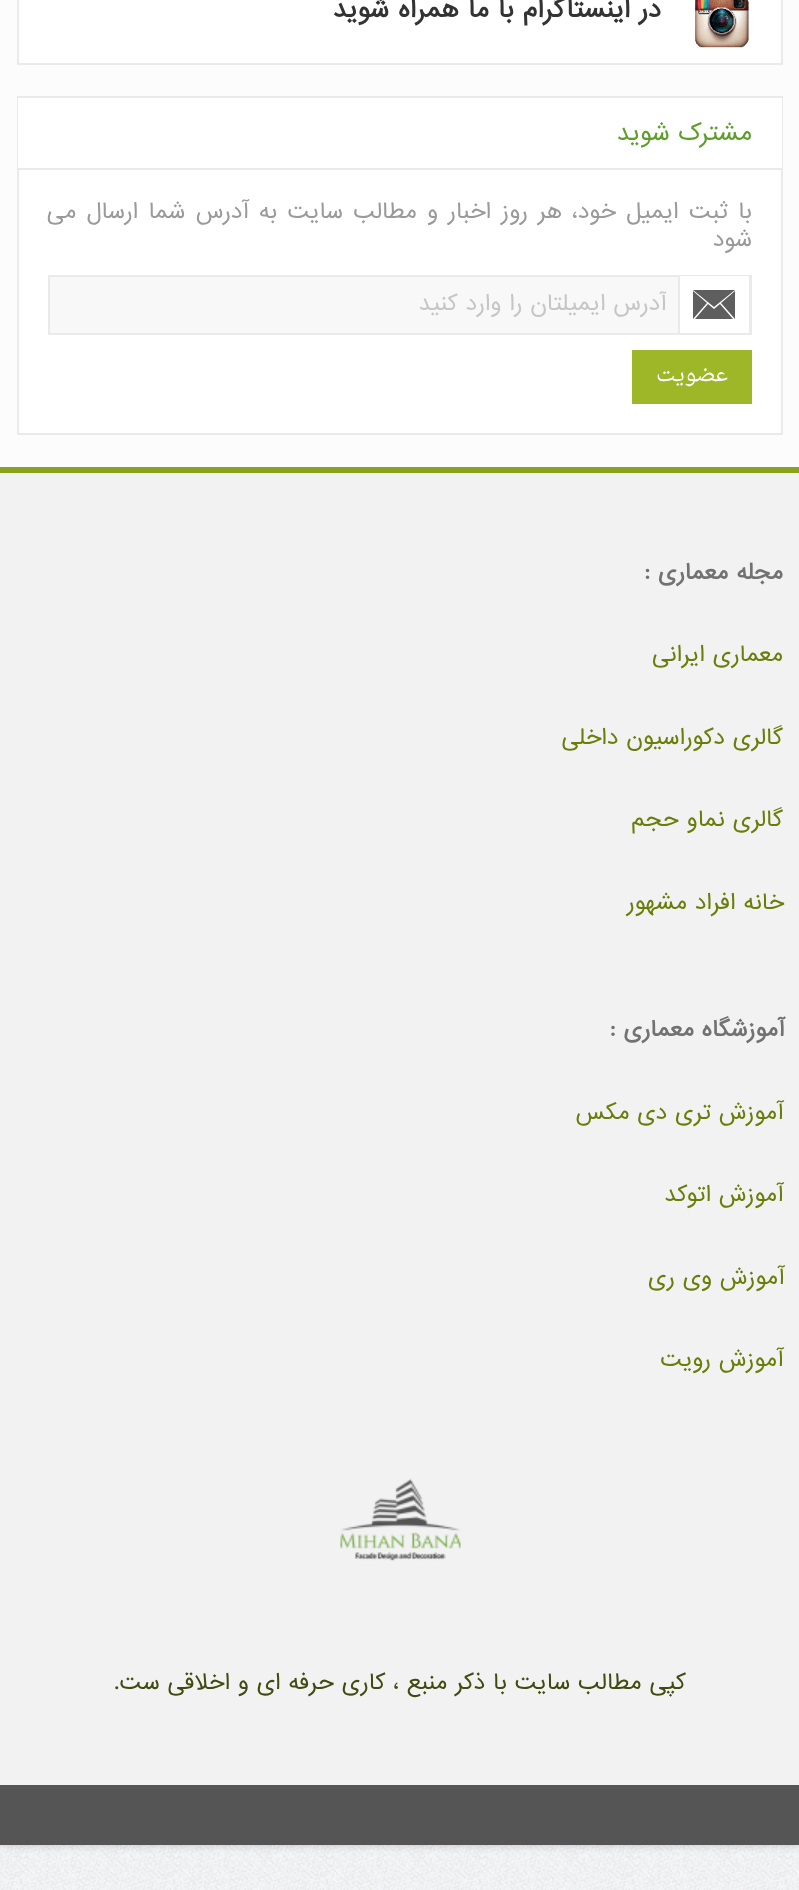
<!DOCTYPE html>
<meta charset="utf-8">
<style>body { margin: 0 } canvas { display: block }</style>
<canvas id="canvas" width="799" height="1890"></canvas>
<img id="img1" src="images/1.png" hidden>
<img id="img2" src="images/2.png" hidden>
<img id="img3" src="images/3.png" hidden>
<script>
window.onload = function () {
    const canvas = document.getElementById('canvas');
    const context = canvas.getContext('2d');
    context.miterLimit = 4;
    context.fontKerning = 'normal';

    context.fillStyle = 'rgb(255, 255, 255)';
    context.fillRect(0, 0, 799, 1890);
    context.drawImage(document.getElementById('img1'), 0, 1845, 799, 45);
    context.fillStyle = 'rgba(0, 0, 0, 0.2)';
    context.filter = 'blur(4px)';
    context.beginPath();
    context.rect(0, -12, 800, 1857);
    context.fill();
    context.filter = 'none';
    context.fillStyle = 'rgb(252, 252, 252)';
    context.fillRect(0, 0, 799, 467);
    context.fillStyle = 'rgb(255, 255, 255)';
    context.beginPath();
    context.rect(18, -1, 764, 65);
    context.fill();
    context.strokeStyle = 'rgb(234, 234, 234)';
    context.lineWidth = 2;
    context.stroke();
    context.drawImage(document.getElementById('img2'), 694, 0, 55, 48);
    context.fillRect(19, 170, 762, 263);
    context.strokeRect(18, 97, 764, 337);
    context.fillRect(18, 98, 764, 70);
    context.fillStyle = 'rgb(234, 234, 234)';
    context.fillRect(18, 168, 764, 2);
    context.fillStyle = 'rgb(248, 248, 248)';
    context.fillRect(50, 277, 628, 56);
    context.strokeRect(49, 276, 702, 58);
    context.fillStyle = 'rgb(255, 255, 255)';
    context.fillRect(680, 276, 69, 1);
    context.fillStyle = 'rgb(234, 234, 234)';
    context.fillRect(749, 276, 1, 57);
    context.fillRect(678, 276, 2, 57);
    context.fillStyle = 'rgb(94, 94, 94)';
    context.beginPath();
    context.moveTo(714, 309);
    context.lineTo(708, 304);
    context.lineTo(695, 319);
    context.lineTo(733, 319);
    context.lineTo(720, 304);
    context.closePath();
    context.moveTo(735, 290);
    context.lineTo(693, 290);
    context.lineTo(714, 307);
    context.closePath();
    context.moveTo(721, 303);
    context.lineTo(735, 319);
    context.lineTo(735, 291);
    context.closePath();
    context.moveTo(693, 291);
    context.lineTo(693, 319);
    context.lineTo(707, 303);
    context.closePath();
    context.fill();
    context.fillStyle = 'rgb(158, 183, 41)';
    context.fillRect(632, 350, 120, 54);
    context.fillStyle = 'rgb(242, 242, 242)';
    context.fillRect(0, 473, 799, 1312);
    context.fillStyle = 'rgb(139, 162, 31)';
    context.fillRect(0, 467, 799, 6);
    context.drawImage(document.getElementById('img3'), 340, 1478, 121, 83);
    context.fillStyle = 'rgb(85, 85, 85)';
    context.fillRect(0, 1785, 799, 60);
    context.direction = 'rtl';
    context.font = 'bold 24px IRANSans';
    context.fillStyle = 'rgb(51, 51, 51)';
    context.fillText('در اینستاگرام با ما همراه شوید', 661, 17);
    context.font = '22.5px IRANSans';
    context.fillStyle = 'rgb(95, 158, 43)';
    context.fillText('مشترک شوید', 752, 140);
    context.wordSpacing = '2.4px';
    context.font = '21px IRANSans';
    context.fillStyle = 'rgb(154, 154, 154)';
    context.fillText('با ثبت ایمیل خود، هر روز اخبار و مطالب سایت به آدرس شما ارسال می', 752, 218);
    context.wordSpacing = '0px';
    context.fillText('شود', 752, 246);
    context.save();
    context.beginPath();
    context.rect(62, 287, 604, 36);
    context.clip();
    context.fillStyle = 'rgb(198, 198, 198)';
    context.fillText('آدرس ایمیلتان را وارد کنید', 666, 310);
    context.restore();
    context.font = '21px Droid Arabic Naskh';
    context.fillStyle = 'rgb(255, 255, 255)';
    context.fillText('عضویت', 728, 381);
    context.font = 'bold 21px IRANSans';
    context.fillStyle = 'rgb(114, 114, 115)';
    context.fillText('مجله معماری :', 783, 579);
    context.font = '21px IRANSans';
    context.fillStyle = 'rgb(105, 125, 9)';
    context.fillText('معماری ایرانی', 783, 661);
    context.fillText('گالری دکوراسیون داخلی', 783, 744);
    context.fillText('گالری نماو حجم', 783, 826);
    context.fillText('خانه افراد مشهور', 784, 909);
    context.font = 'bold 21px IRANSans';
    context.fillStyle = 'rgb(114, 114, 115)';
    context.fillText('آموزشگاه معماری :', 784, 1036);
    context.font = '21px IRANSans';
    context.fillStyle = 'rgb(105, 125, 9)';
    context.fillText('آموزش تری دی مکس', 783, 1119);
    context.fillText('آموزش اتوکد', 783, 1201);
    context.fillText('آموزش وی ری', 784, 1284);
    context.fillText('آموزش رویت', 783, 1366);
    context.fillStyle = 'rgb(63, 75, 15)';
    context.fillText('کپی مطالب سایت با ذکر منبع ، کاری حرفه ای و اخلاقی ست.', 686, 1689);
};
</script>
